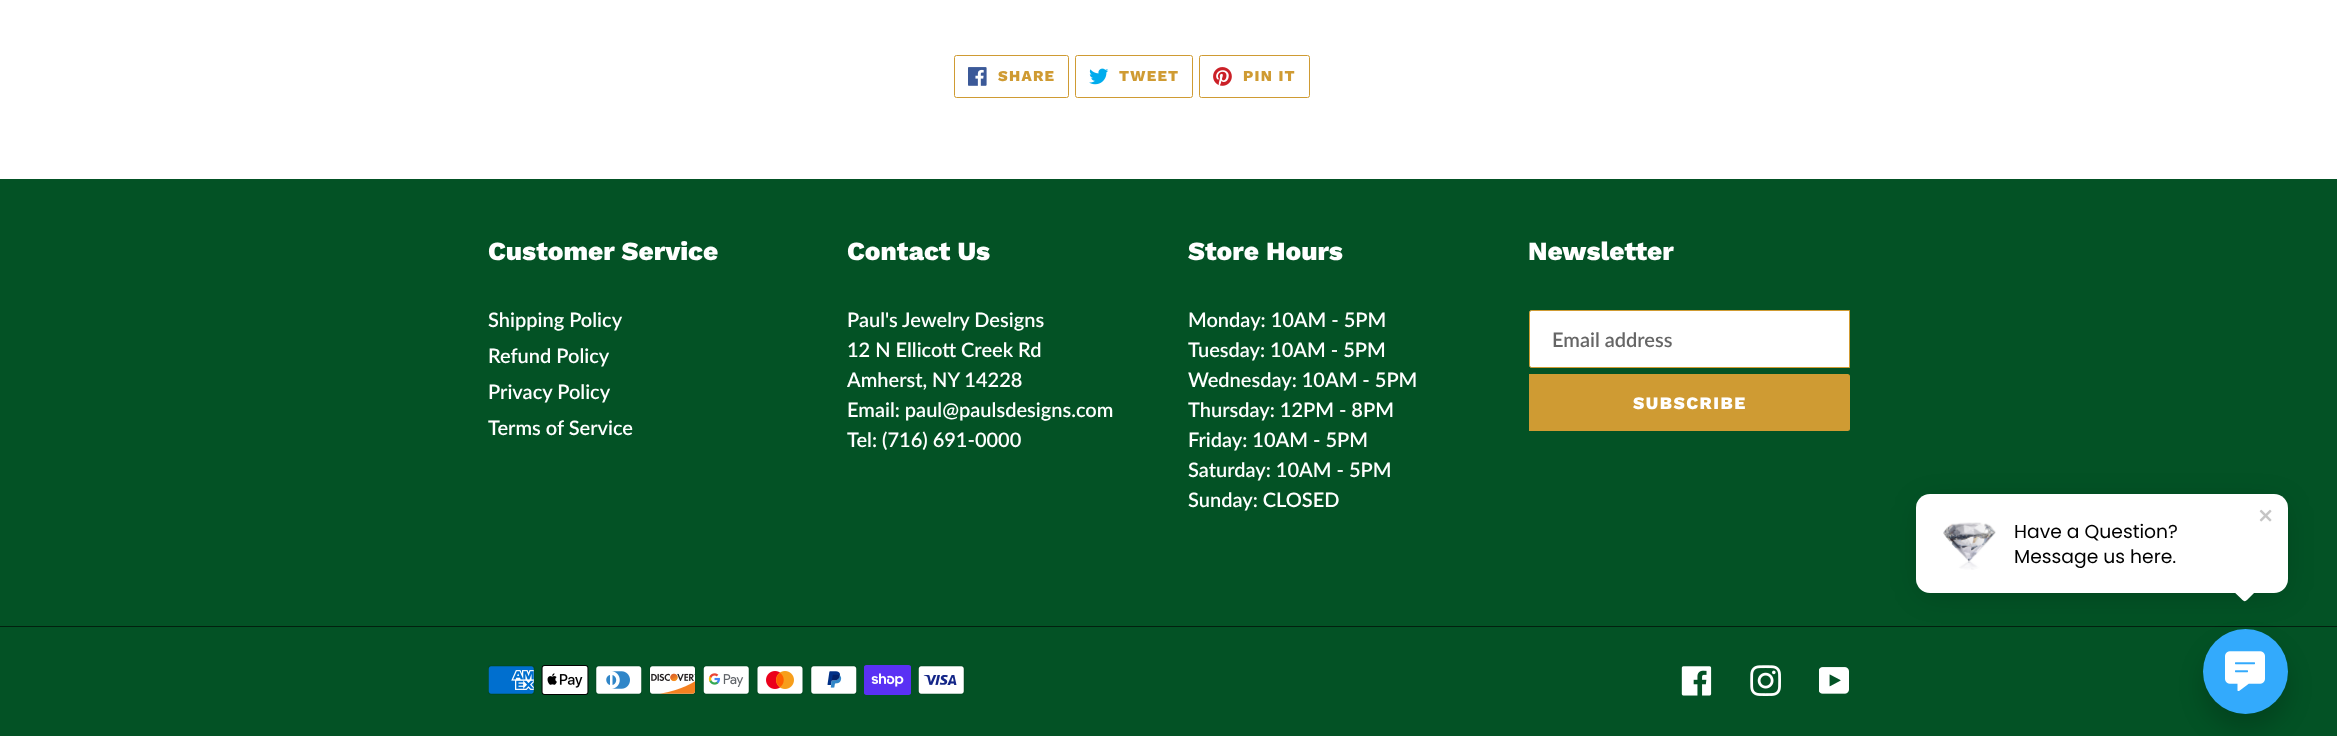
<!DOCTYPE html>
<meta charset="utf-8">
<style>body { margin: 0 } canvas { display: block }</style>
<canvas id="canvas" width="2337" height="736"></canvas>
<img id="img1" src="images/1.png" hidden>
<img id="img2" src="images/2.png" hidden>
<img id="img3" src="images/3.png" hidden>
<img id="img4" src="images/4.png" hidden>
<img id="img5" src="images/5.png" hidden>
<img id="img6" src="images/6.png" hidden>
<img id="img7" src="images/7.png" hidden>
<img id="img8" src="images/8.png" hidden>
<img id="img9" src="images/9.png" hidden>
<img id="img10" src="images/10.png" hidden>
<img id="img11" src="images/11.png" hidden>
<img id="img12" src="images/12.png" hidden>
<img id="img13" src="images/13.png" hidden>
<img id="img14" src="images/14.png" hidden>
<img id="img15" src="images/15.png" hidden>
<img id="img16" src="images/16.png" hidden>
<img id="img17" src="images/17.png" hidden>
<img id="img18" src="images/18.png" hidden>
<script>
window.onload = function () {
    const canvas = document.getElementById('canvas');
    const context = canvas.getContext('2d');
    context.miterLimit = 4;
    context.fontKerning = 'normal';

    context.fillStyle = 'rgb(255, 255, 255)';
    context.fillRect(0, 0, 2337, 736);
    context.beginPath();
    context.roundRect(954.5, 55.5, 114, 42, 2);
    context.strokeStyle = 'rgb(207, 155, 51)';
    context.stroke();
    context.drawImage(document.getElementById('img1'), 968, 67, 19, 19);
    context.beginPath();
    context.roundRect(1075.5, 55.5, 117, 42, 2);
    context.stroke();
    context.drawImage(document.getElementById('img2'), 1089, 68, 20, 17);
    context.beginPath();
    context.roundRect(1199.5, 55.5, 110, 42, 2);
    context.stroke();
    context.drawImage(document.getElementById('img3'), 1213, 67, 19, 19);
    context.fillStyle = 'rgb(3, 82, 37)';
    context.fillRect(0, 179, 2337, 557);
    context.fillStyle = 'rgb(255, 255, 255)';
    context.beginPath();
    context.roundRect(1529.5, 310.5, 320, 57, [2, 0, 0, 2]);
    context.fill();
    context.stroke();
    context.fillStyle = 'rgb(207, 155, 51)';
    context.beginPath();
    context.roundRect(1529, 374, 321, 57, [0, 2.5, 2.5, 0]);
    context.fill();
    context.fillStyle = 'rgb(1, 33, 15)';
    context.fillRect(0, 626, 2337, 1);
    context.drawImage(document.getElementById('img4'), 488, 665, 47, 30);
    context.drawImage(document.getElementById('img5'), 541, 665, 48, 30);
    context.drawImage(document.getElementById('img6'), 595, 665, 47, 30);
    context.drawImage(document.getElementById('img7'), 649, 665, 47, 30);
    context.drawImage(document.getElementById('img8'), 703, 665, 47, 30);
    context.drawImage(document.getElementById('img9'), 756, 665, 48, 30);
    context.drawImage(document.getElementById('img10'), 810, 665, 47, 30);
    context.drawImage(document.getElementById('img11'), 864, 665, 47, 30);
    context.drawImage(document.getElementById('img12'), 918, 665, 47, 30);
    context.drawImage(document.getElementById('img13'), 1681, 666, 31, 30);
    context.drawImage(document.getElementById('img14'), 1750, 665, 31, 31);
    context.drawImage(document.getElementById('img15'), 1819, 667, 30, 27);
    context.fillStyle = 'rgba(0, 0, 0, 0.18)';
    context.filter = 'blur(12px)';
    context.beginPath();
    context.roundRect(2203, 644, 85, 85, 42.5);
    context.fill();
    context.filter = 'none';
    context.fillStyle = 'rgb(51, 170, 252)';
    context.beginPath();
    context.arc(2245.5, 671.5, 42.5, 0, 2 * Math.PI);
    context.fill();
    context.fillStyle = 'rgba(0, 0, 0, 0.18)';
    context.filter = 'blur(15px)';
    context.beginPath();
    context.roundRect(1921, 504, 362, 89, 9);
    context.fill();
    context.filter = 'none';
    context.fillStyle = 'rgb(255, 255, 255)';
    context.beginPath();
    context.roundRect(1916, 494, 372, 99, 14);
    context.fill();
    context.drawImage(document.getElementById('img16'), 2259, 509, 13, 13);
    context.drawImage(document.getElementById('img17'), 1943, 522, 53, 48);
    context.beginPath();
    context.moveTo(2231, 589);
    context.lineTo(2241, 598.5);
    context.bezierCurveTo(2244.5, 602, 2245, 602, 2248.5, 598.5);
    context.lineTo(2258, 589);
    context.closePath();
    context.fill('evenodd');
    context.drawImage(document.getElementById('img18'), 2225, 651, 40, 40);
    context.letterSpacing = '1.25px';
    context.font = '800 15px Work Sans';
    context.fillStyle = 'rgb(207, 155, 51)';
    context.fillText('SHARE', 998, 81);
    context.fillText('TWEET', 1119, 81);
    context.fillText('PIN IT', 1243, 81);
    context.letterSpacing = '0px';
    context.font = '800 26.25px Work Sans';
    context.fillStyle = 'rgb(255, 255, 255)';
    context.fillText('Customer Service', 488, 260);
    context.font = '600 20px Lato';
    context.fillText('Shipping Policy', 488, 327);
    context.fillText('Refund Policy', 488, 363);
    context.fillText('Privacy Policy', 488, 399);
    context.fillText('Terms of Service', 488, 435);
    context.font = '800 26.25px Work Sans';
    context.fillText('Contact Us', 847, 260);
    context.font = '600 20px Lato';
    context.fillText('Paul\'s Jewelry Designs', 847, 327);
    context.fillText('12 N Ellicott Creek Rd', 847, 357);
    context.fillText('Amherst, NY 14228', 847, 387);
    context.fillText('Email: paul@paulsdesigns.com', 847, 417);
    context.fillText('Tel: (716) 691-0000', 847, 447);
    context.font = '800 26.25px Work Sans';
    context.fillText('Store Hours', 1188, 260);
    context.font = '600 20px Lato';
    context.fillText('Monday: 10AM - 5PM', 1188, 327);
    context.fillText('Tuesday: 10AM - 5PM', 1188, 357);
    context.fillText('Wednesday: 10AM - 5PM', 1188, 387);
    context.fillText('Thursday: 12PM - 8PM', 1188, 417);
    context.fillText('Friday: 10AM - 5PM', 1188, 447);
    context.fillText('Saturday: 10AM - 5PM', 1188, 477);
    context.fillText('Sunday: CLOSED', 1188, 507);
    context.font = '800 26.25px Work Sans';
    context.fillText('Newsletter', 1528, 260);
    context.font = '600 20px Lato';
    context.fillStyle = 'rgb(102, 102, 102)';
    context.fillText('Email address', 1552, 347);
    context.letterSpacing = '1.5px';
    context.font = '800 17.5px Work Sans';
    context.fillStyle = 'rgb(255, 255, 255)';
    context.fillText('SUBSCRIBE', 1633, 409);
    context.letterSpacing = '0px';
    context.font = '18.75px Poppins';
    context.fillStyle = 'rgb(0, 0, 0)';
    context.fillText('Have a Question?', 2014, 538);
    context.fillText('Message us here.', 2014, 563);
};
</script>
